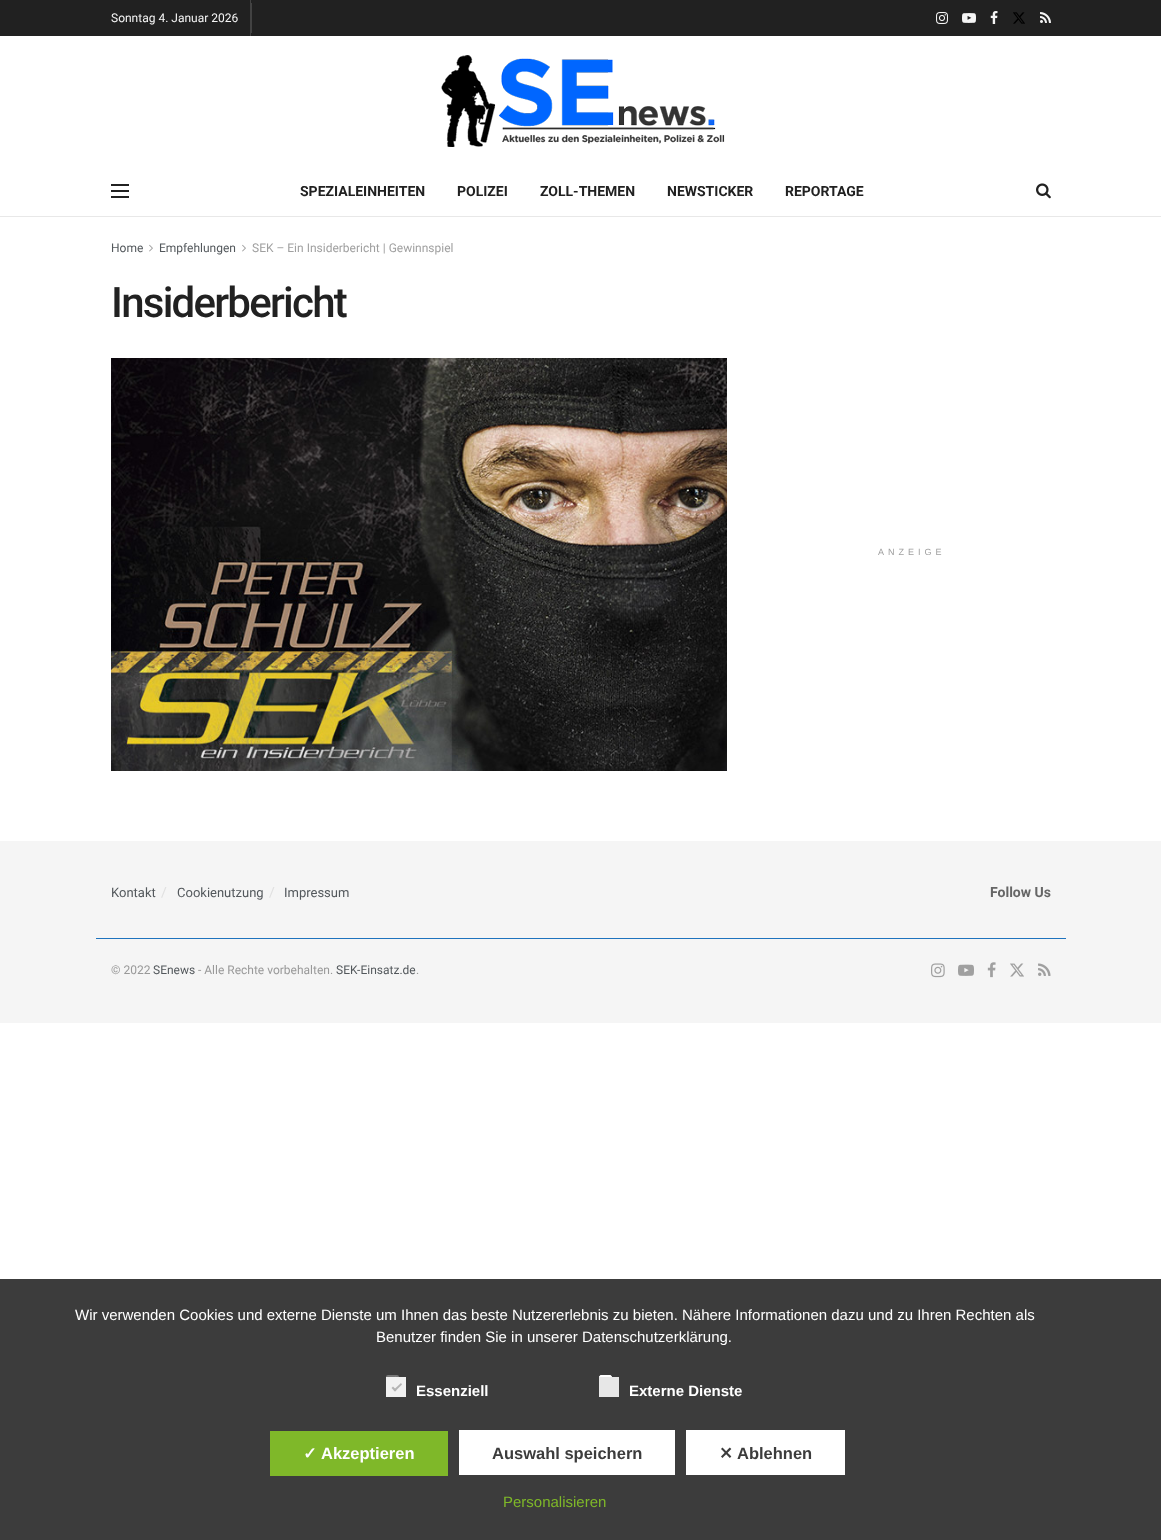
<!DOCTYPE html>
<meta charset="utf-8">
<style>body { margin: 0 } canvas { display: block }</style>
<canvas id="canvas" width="1161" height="1540"></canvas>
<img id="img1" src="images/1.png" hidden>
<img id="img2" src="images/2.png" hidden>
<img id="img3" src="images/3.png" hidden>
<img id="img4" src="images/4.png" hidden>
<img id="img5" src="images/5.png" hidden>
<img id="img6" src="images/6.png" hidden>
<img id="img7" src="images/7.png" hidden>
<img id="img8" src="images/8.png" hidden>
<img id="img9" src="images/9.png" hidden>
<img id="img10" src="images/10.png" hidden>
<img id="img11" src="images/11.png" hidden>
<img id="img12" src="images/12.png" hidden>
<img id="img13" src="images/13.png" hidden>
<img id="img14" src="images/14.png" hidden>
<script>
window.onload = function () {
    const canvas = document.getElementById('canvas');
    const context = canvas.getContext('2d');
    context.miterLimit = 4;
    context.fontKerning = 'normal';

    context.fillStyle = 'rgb(255, 255, 255)';
    context.fillRect(0, 0, 1161, 1540);
    context.fillStyle = 'rgb(33, 33, 33)';
    context.fillRect(0, 0, 1161, 36);
    context.fillStyle = 'rgb(66, 66, 66)';
    context.fillRect(250, 0, 1, 36);
    context.fillRect(251, 3, 1, 30);
    context.drawImage(document.getElementById('img1'), 936, 12, 12, 12);
    context.drawImage(document.getElementById('img2'), 962, 13, 14, 10);
    context.drawImage(document.getElementById('img3'), 990, 11, 8, 13);
    context.drawImage(document.getElementById('img4'), 1013, 12, 12, 12);
    context.drawImage(document.getElementById('img5'), 1040, 12, 11, 11);
    context.drawImage(document.getElementById('img6'), 441, 55, 284, 92);
    context.fillStyle = 'rgb(232, 232, 232)';
    context.fillRect(0, 216, 1161, 1);
    context.fillStyle = 'rgb(33, 33, 33)';
    context.fillRect(111, 184, 18, 2);
    context.fillRect(111, 190, 18, 2);
    context.fillRect(111, 196, 18, 2);
    context.drawImage(document.getElementById('img7'), 1036, 183, 15, 16);
    context.drawImage(document.getElementById('img8'), 149, 244, 4, 8);
    context.drawImage(document.getElementById('img8'), 242, 244, 4, 8);
    context.drawImage(document.getElementById('img9'), 111, 358, 616, 413);
    context.fillStyle = 'rgb(245, 245, 245)';
    context.fillRect(0, 841, 1161, 182);
    context.fillStyle = 'rgb(30, 115, 190)';
    context.fillRect(96, 938, 970, 1);
    context.drawImage(document.getElementById('img10'), 931, 963, 14, 15);
    context.drawImage(document.getElementById('img11'), 958, 964, 16, 12);
    context.drawImage(document.getElementById('img12'), 987, 962, 9, 16);
    context.drawImage(document.getElementById('img13'), 1010, 963, 14, 14);
    context.drawImage(document.getElementById('img14'), 1038, 963, 13, 13);
    context.fillStyle = 'rgb(60, 60, 60)';
    context.fillRect(0, 1279, 1161, 261);
    context.fillStyle = 'rgb(119, 119, 119)';
    context.beginPath();
    context.roundRect(386, 1375, 13, 13, 2);
    context.fill();
    context.beginPath();
    context.moveTo(388.5, 1381.5);
    context.lineTo(391, 1384);
    context.lineTo(396.5, 1377.5);
    context.strokeStyle = 'rgb(255, 255, 255)';
    context.lineWidth = 2.1;
    context.stroke();
    context.fillStyle = 'rgb(241, 241, 241)';
    context.fillRect(386, 1377, 20, 20);
    context.fillStyle = 'rgb(179, 179, 179)';
    context.beginPath();
    context.moveTo(401, 1383);
    context.lineTo(402, 1384.5);
    context.lineTo(395, 1391.5);
    context.lineTo(393.5, 1390);
    context.closePath();
    context.fill();
    context.beginPath();
    context.moveTo(393, 1386.5);
    context.lineTo(396.5, 1390);
    context.lineTo(395, 1391.5);
    context.lineTo(391.5, 1388);
    context.closePath();
    context.fill();
    context.fillStyle = 'rgb(255, 255, 255)';
    context.beginPath();
    context.roundRect(599.5, 1375.5, 12, 12, 1.5);
    context.fill();
    context.lineWidth = 1;
    context.stroke();
    context.fillStyle = 'rgb(231, 231, 231)';
    context.fillRect(599, 1377, 20, 20);
    context.fillStyle = 'rgb(127, 184, 41)';
    context.fillRect(270, 1431, 178, 45);
    context.fillStyle = 'rgb(255, 255, 255)';
    context.fillRect(459, 1430, 216, 45);
    context.fillRect(686, 1430, 159, 45);
    context.font = '12px Roboto';
    context.fillStyle = 'rgb(245, 245, 245)';
    context.fillText('Sonntag 4. Januar 2026', 111, 22);
    context.font = 'bold 14px Roboto';
    context.fillStyle = 'rgb(33, 33, 33)';
    context.fillText('SPEZIALEINHEITEN', 300, 196);
    context.fillText('POLIZEI', 457, 196);
    context.fillText('ZOLL-THEMEN', 540, 196);
    context.fillText('NEWSTICKER', 667, 196);
    context.fillText('REPORTAGE', 785, 196);
    context.font = '12px Roboto';
    context.fillStyle = 'rgb(83, 88, 92)';
    context.fillText('Home', 111, 252);
    context.fillText('Empfehlungen', 159, 252);
    context.fillStyle = 'rgb(160, 160, 160)';
    context.fillText('SEK – Ein Insiderbericht | Gewinnspiel', 252, 252);
    context.letterSpacing = '-1.75px';
    context.font = '500 42px Roboto';
    context.fillStyle = 'rgb(33, 33, 33)';
    context.fillText('Insiderbericht', 111, 317);
    context.letterSpacing = '4px';
    context.font = '9px Liberation Sans';
    context.fillStyle = 'rgb(160, 160, 160)';
    context.fillText('ANZEIGE', 878, 555);
    context.letterSpacing = '0px';
    context.font = '13px Roboto';
    context.fillStyle = 'rgb(83, 88, 92)';
    context.fillText('Kontakt', 111, 897);
    context.font = '14px Roboto';
    context.fillStyle = 'rgb(224, 224, 224)';
    context.fillText('/', 161, 897);
    context.font = '13px Roboto';
    context.fillStyle = 'rgb(83, 88, 92)';
    context.fillText('Cookienutzung', 177, 897);
    context.font = '14px Roboto';
    context.fillStyle = 'rgb(224, 224, 224)';
    context.fillText('/', 269, 897);
    context.font = '13px Roboto';
    context.fillStyle = 'rgb(83, 88, 92)';
    context.fillText('Impressum', 284, 897);
    context.font = 'bold 14px Roboto';
    context.fillStyle = 'rgb(102, 102, 102)';
    context.fillText('Follow Us', 990, 897);
    context.font = '12px Roboto';
    context.fillStyle = 'rgb(153, 153, 153)';
    context.fillText('© 2022', 111, 974);
    context.fillStyle = 'rgb(83, 88, 92)';
    context.fillText('SEnews', 153, 974);
    context.fillStyle = 'rgb(153, 153, 153)';
    context.fillText('- Alle Rechte vorbehalten.', 198, 974);
    context.fillStyle = 'rgb(83, 88, 92)';
    context.fillText('SEK-Einsatz.de', 336, 974);
    context.fillStyle = 'rgb(153, 153, 153)';
    context.fillText('.', 416, 974);
    context.font = '15px Liberation Sans';
    context.fillStyle = 'rgb(255, 255, 255)';
    context.fillText('Wir verwenden Cookies und externe Dienste um Ihnen das beste Nutzererlebnis zu bieten. Nähere Informationen dazu und zu Ihren Rechten als', 75, 1320);
    context.fillText('Benutzer finden Sie in unserer Datenschutzerklärung.', 376, 1342);
    context.font = 'bold 15px Liberation Sans';
    context.fillText('Essenziell', 416, 1396);
    context.fillText('Externe Dienste', 629, 1396);
    context.font = 'bold 16.5px DejaVu Sans';
    context.fillText('✓', 303, 1459);
    context.font = 'bold 16.5px Liberation Sans';
    context.fillText('Akzeptieren', 321, 1459);
    context.fillStyle = 'rgb(60, 60, 60)';
    context.fillText('Auswahl speichern', 492, 1459);
    context.font = 'bold 16.5px DejaVu Sans';
    context.fillText('✕', 719, 1459);
    context.font = 'bold 16.5px Liberation Sans';
    context.fillText('Ablehnen', 737, 1459);
    context.font = '15px Liberation Sans';
    context.fillStyle = 'rgb(127, 184, 41)';
    context.fillText('Personalisieren', 503, 1507);
};
</script>
